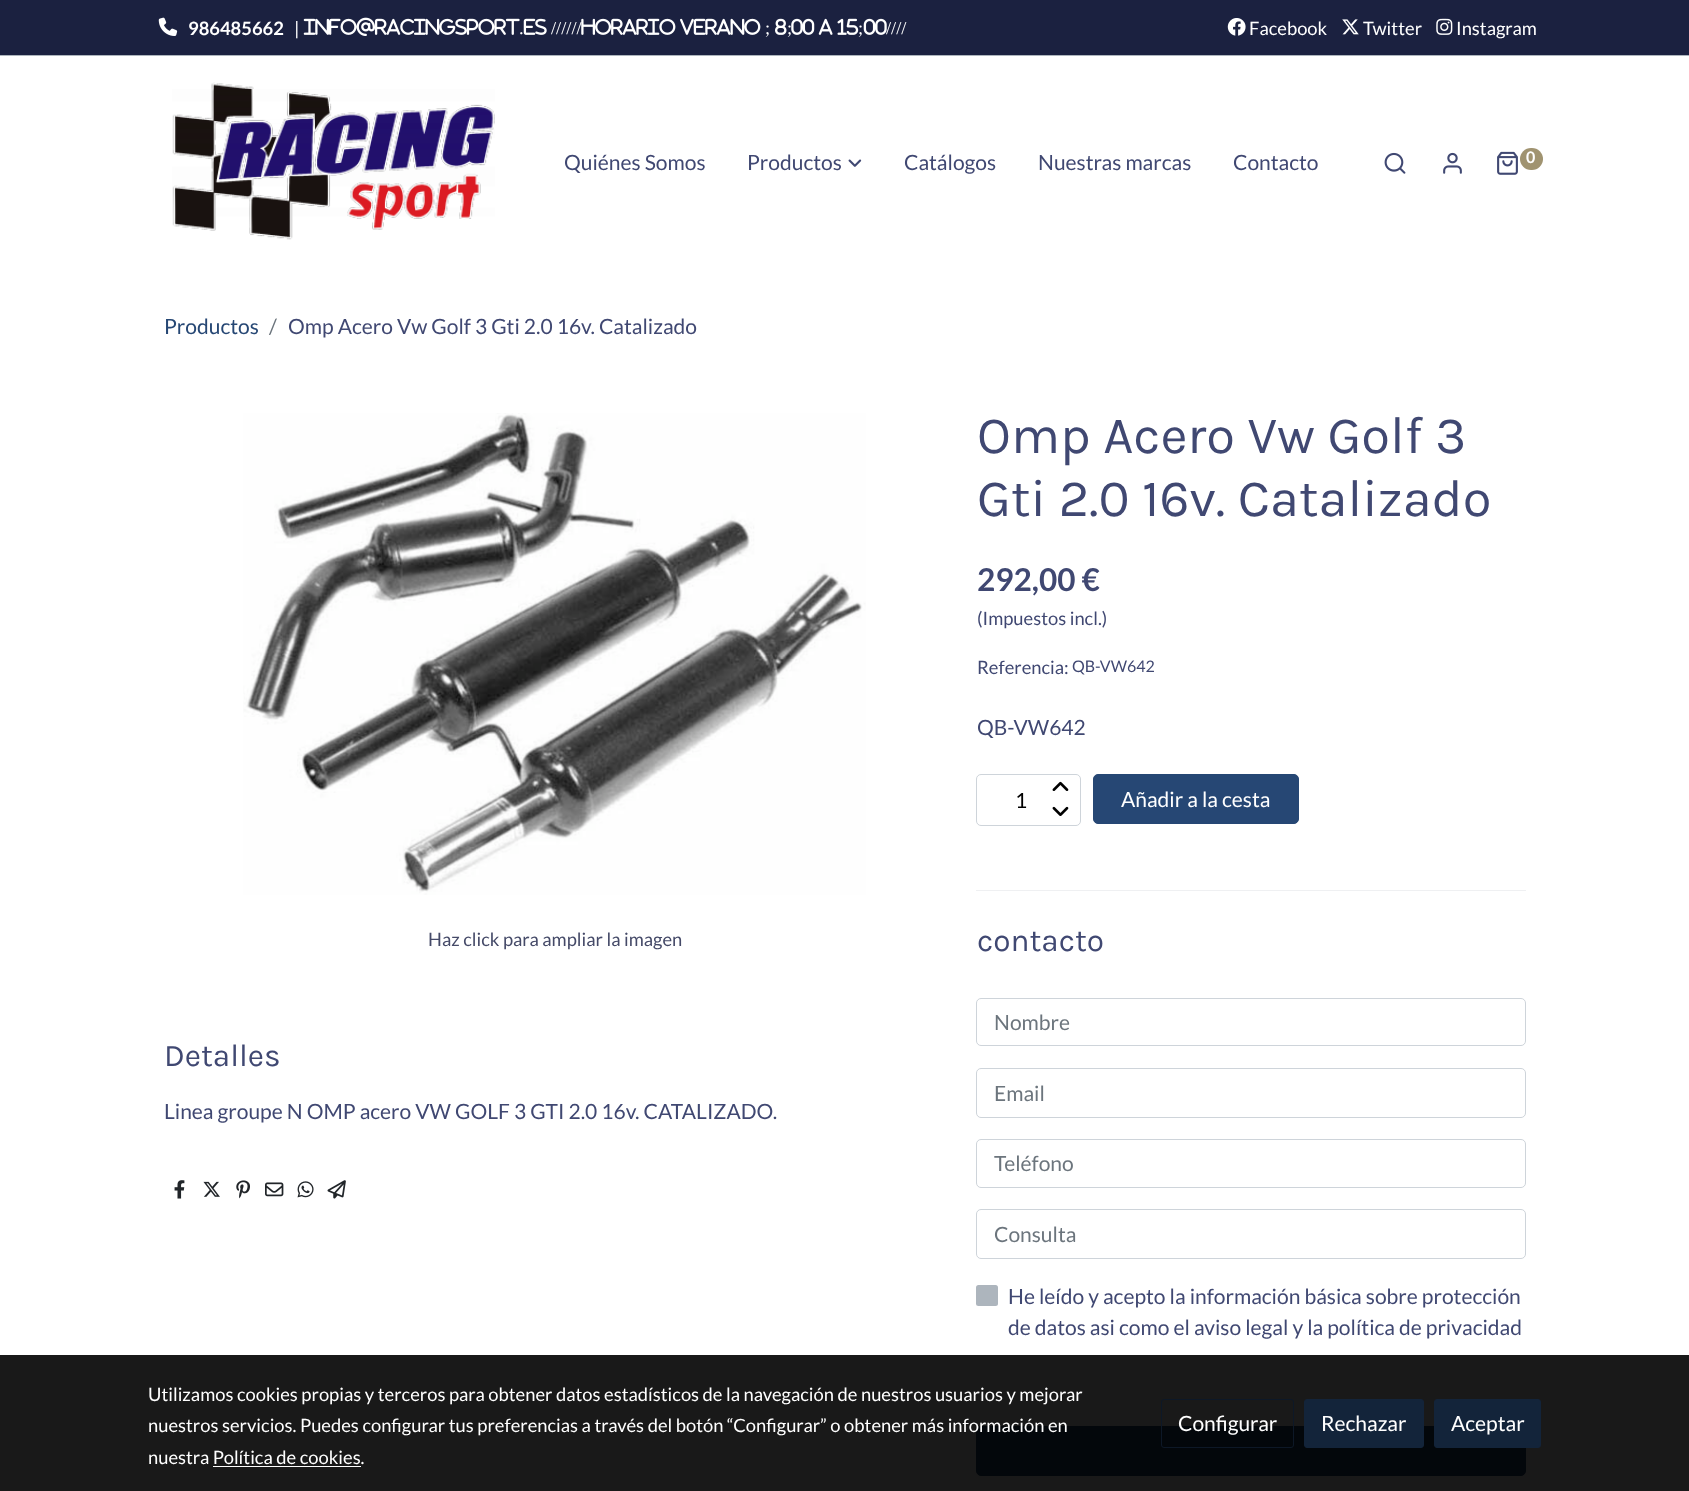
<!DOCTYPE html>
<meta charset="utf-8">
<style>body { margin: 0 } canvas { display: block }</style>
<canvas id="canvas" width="1689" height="1491"></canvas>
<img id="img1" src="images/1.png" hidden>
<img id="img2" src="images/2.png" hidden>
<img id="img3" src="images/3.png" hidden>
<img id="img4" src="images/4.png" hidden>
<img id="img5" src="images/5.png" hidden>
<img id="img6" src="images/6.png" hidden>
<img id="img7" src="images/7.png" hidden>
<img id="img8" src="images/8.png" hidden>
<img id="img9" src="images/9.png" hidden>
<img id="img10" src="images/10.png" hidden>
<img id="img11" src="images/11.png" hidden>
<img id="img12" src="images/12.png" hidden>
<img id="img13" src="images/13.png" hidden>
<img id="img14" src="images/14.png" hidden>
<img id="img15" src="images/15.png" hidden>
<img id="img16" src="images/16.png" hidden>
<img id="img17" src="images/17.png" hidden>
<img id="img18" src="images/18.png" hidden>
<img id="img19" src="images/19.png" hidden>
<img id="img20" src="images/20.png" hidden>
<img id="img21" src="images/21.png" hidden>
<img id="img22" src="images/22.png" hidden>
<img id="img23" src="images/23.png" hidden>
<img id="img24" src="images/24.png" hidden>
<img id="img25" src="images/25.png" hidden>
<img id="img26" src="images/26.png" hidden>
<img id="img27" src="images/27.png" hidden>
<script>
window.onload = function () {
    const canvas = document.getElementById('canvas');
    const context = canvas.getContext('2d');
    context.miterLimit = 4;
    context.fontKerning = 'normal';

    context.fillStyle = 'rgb(255, 255, 255)';
    context.fillRect(0, 0, 1689, 1491);
    context.fillStyle = 'rgb(173, 181, 189)';
    context.fillRect(0, 55, 1689, 1);
    context.fillStyle = 'rgb(27, 33, 64)';
    context.fillRect(0, 0, 1689, 55);
    context.drawImage(document.getElementById('img1'), 158, 17, 20, 19);
    context.drawImage(document.getElementById('img2'), 303, 17, 217, 19);
    context.drawImage(document.getElementById('img3'), 523, 18, 24, 17);
    context.drawImage(document.getElementById('img4'), 581, 18, 95, 17);
    context.drawImage(document.getElementById('img5'), 680, 18, 81, 17);
    context.drawImage(document.getElementById('img6'), 775, 18, 12, 17);
    context.drawImage(document.getElementById('img7'), 791, 18, 24, 17);
    context.drawImage(document.getElementById('img8'), 818, 18, 15, 17);
    context.drawImage(document.getElementById('img9'), 837, 18, 22, 17);
    context.drawImage(document.getElementById('img10'), 863, 18, 24, 17);
    context.drawImage(document.getElementById('img11'), 1227, 18, 19, 18);
    context.drawImage(document.getElementById('img12'), 1342, 19, 17, 16);
    context.drawImage(document.getElementById('img13'), 1436, 18, 17, 17);
    context.drawImage(document.getElementById('img14'), 172, 82, 323, 158);
    context.drawImage(document.getElementById('img15'), 848, 159, 14, 8);
    context.drawImage(document.getElementById('img16'), 1384, 152, 22, 22);
    context.drawImage(document.getElementById('img17'), 1443, 152, 19, 22);
    context.drawImage(document.getElementById('img18'), 1497, 151, 21, 24);
    context.fillStyle = 'rgb(160, 147, 112)';
    context.beginPath();
    context.roundRect(1520, 148, 23, 22, 11);
    context.fill();
    context.drawImage(document.getElementById('img19'), 243, 413, 623, 482);
    context.drawImage(document.getElementById('img20'), 174, 1180, 11, 19);
    context.drawImage(document.getElementById('img21'), 203, 1181, 17, 16);
    context.drawImage(document.getElementById('img22'), 236, 1180, 14, 19);
    context.drawImage(document.getElementById('img23'), 265, 1182, 19, 15);
    context.drawImage(document.getElementById('img24'), 297, 1181, 17, 17);
    context.drawImage(document.getElementById('img25'), 327, 1180, 19, 19);
    context.beginPath();
    context.roundRect(976.5, 774.5, 104, 51, 4.5);
    context.strokeStyle = 'rgb(206, 212, 218)';
    context.stroke();
    context.drawImage(document.getElementById('img26'), 1052, 781, 17, 10);
    context.drawImage(document.getElementById('img27'), 1052, 806, 17, 10);
    context.fillStyle = 'rgb(38, 71, 116)';
    context.beginPath();
    context.roundRect(1093.5, 774.5, 205, 49, 4.5);
    context.fill();
    context.strokeStyle = 'rgb(38, 71, 116)';
    context.stroke();
    context.fillStyle = 'rgb(239, 240, 242)';
    context.fillRect(976, 890, 550, 1);
    context.beginPath();
    context.roundRect(976.5, 998.5, 549, 47, 4.5);
    context.strokeStyle = 'rgb(206, 212, 218)';
    context.stroke();
    context.beginPath();
    context.roundRect(976.5, 1068.5, 549, 49, 4.5);
    context.stroke();
    context.beginPath();
    context.roundRect(976.5, 1139.5, 549, 48, 4.5);
    context.stroke();
    context.beginPath();
    context.roundRect(976.5, 1209.5, 549, 49, 4.5);
    context.stroke();
    context.fillStyle = 'rgb(173, 181, 189)';
    context.beginPath();
    context.roundRect(976, 1285, 22, 21, 2.5);
    context.fill();
    context.fillStyle = 'rgb(38, 71, 116)';
    context.beginPath();
    context.roundRect(976.5, 1426.5, 549, 49, 4.5);
    context.fill();
    context.strokeStyle = 'rgb(38, 71, 116)';
    context.stroke();
    context.fillStyle = 'rgba(0, 0, 0, 0.9)';
    context.fillRect(0, 1355, 1689, 136);
    context.fillStyle = 'rgb(255, 255, 255)';
    context.fillRect(213, 1466, 148, 1);
    context.beginPath();
    context.roundRect(1161.5, 1399.5, 132, 48, 2.5);
    context.strokeStyle = 'rgb(13, 24, 39)';
    context.stroke();
    context.fillStyle = 'rgb(19, 36, 58)';
    context.beginPath();
    context.roundRect(1304.5, 1399.5, 119, 48, 2.5);
    context.fill();
    context.strokeStyle = 'rgb(19, 36, 58)';
    context.stroke();
    context.beginPath();
    context.roundRect(1434.5, 1399.5, 106, 48, 2.5);
    context.fill();
    context.stroke();
    context.font = 'bold 18.38px Lato';
    context.fillStyle = 'rgb(255, 255, 255)';
    context.fillText('986485662', 188, 35);
    context.font = '18.38px Lato';
    context.fillText('|', 294, 35);
    context.font = '18.38px Liberation Serif';
    context.fillText('.', 519, 34);
    context.fillText('//////', 551, 34);
    context.fillText(';', 765, 34);
    context.fillText(';', 787, 34);
    context.fillText(';', 858, 34);
    context.fillText('////', 886, 34);
    context.font = '18.38px Lato';
    context.fillText('Facebook', 1249, 35);
    context.fillText('Twitter', 1363, 35);
    context.fillText('Instagram', 1456, 35);
    context.font = '21px Lato';
    context.fillStyle = 'rgb(64, 72, 114)';
    context.fillText('Quiénes Somos', 564, 170);
    context.fillText('Productos', 747, 170);
    context.fillText('Catálogos', 904, 170);
    context.fillText('Nuestras marcas', 1038, 170);
    context.fillText('Contacto', 1233, 170);
    context.font = 'bold 16px Lato';
    context.fillStyle = 'rgb(255, 255, 255)';
    context.fillText('0', 1526, 163);
    context.font = '21px Lato';
    context.fillStyle = 'rgb(38, 71, 116)';
    context.fillText('Productos', 164, 334);
    context.fillStyle = 'rgb(108, 117, 125)';
    context.fillText('/', 269, 334);
    context.fillStyle = 'rgb(64, 72, 114)';
    context.fillText('Omp Acero Vw Golf 3 Gti 2.0 16v. Catalizado', 288, 334);
    context.font = '18.38px Lato';
    context.fillStyle = 'rgb(69, 74, 104)';
    context.fillText('Haz click para ampliar la imagen', 428, 946);
    context.font = '31.5px Karla';
    context.fillStyle = 'rgb(64, 72, 114)';
    context.fillText('Detalles', 164, 1066);
    context.font = '21px Lato';
    context.fillText('Linea groupe N OMP acero VW GOLF 3 GTI 2.0 16v. CATALIZADO.', 164, 1119);
    context.font = '52.5px Karla';
    context.fillText('Omp Acero Vw Golf 3', 977, 453);
    context.fillText('Gti 2.0 16v. Catalizado', 977, 516);
    context.font = 'bold 31.5px Lato';
    context.fillText('292,00 €', 977, 591);
    context.font = '18.38px Lato';
    context.fillText('(Impuestos incl.)', 977, 625);
    context.fillText('Referencia:', 977, 674);
    context.font = '16px Lato';
    context.fillText('QB-VW642', 1072, 672);
    context.font = '21px Lato';
    context.fillText('QB-VW642', 977, 735);
    context.fillStyle = 'rgb(0, 0, 0)';
    context.fillText('1', 1015, 808);
    context.fillStyle = 'rgb(255, 255, 255)';
    context.fillText('Añadir a la cesta', 1121, 807);
    context.font = '31.5px Karla';
    context.fillStyle = 'rgb(64, 72, 114)';
    context.fillText('contacto', 977, 951);
    context.font = '21px Lato';
    context.fillStyle = 'rgb(108, 117, 125)';
    context.fillText('Nombre', 994, 1030);
    context.fillText('Email', 994, 1101);
    context.fillText('Teléfono', 994, 1171);
    context.fillText('Consulta', 994, 1242);
    context.fillStyle = 'rgb(64, 72, 114)';
    context.fillText('He leído y acepto la información básica sobre protección', 1008, 1304);
    context.fillText('de datos asi como el aviso legal y la política de privacidad', 1008, 1335);
    context.font = '18.38px Lato';
    context.fillStyle = 'rgb(255, 255, 255)';
    context.fillText('Utilizamos cookies propias y terceros para obtener datos estadísticos de la navegación de nuestros usuarios y mejorar', 148, 1401);
    context.fillText('nuestros servicios. Puedes configurar tus preferencias a través del botón “Configurar” o obtener más información en', 148, 1432);
    context.fillText('nuestra Política de cookies.', 148, 1464);
    context.font = '21px Lato';
    context.fillText('Configurar', 1178, 1431);
    context.fillText('Rechazar', 1321, 1431);
    context.fillText('Aceptar', 1451, 1431);
};
</script>
